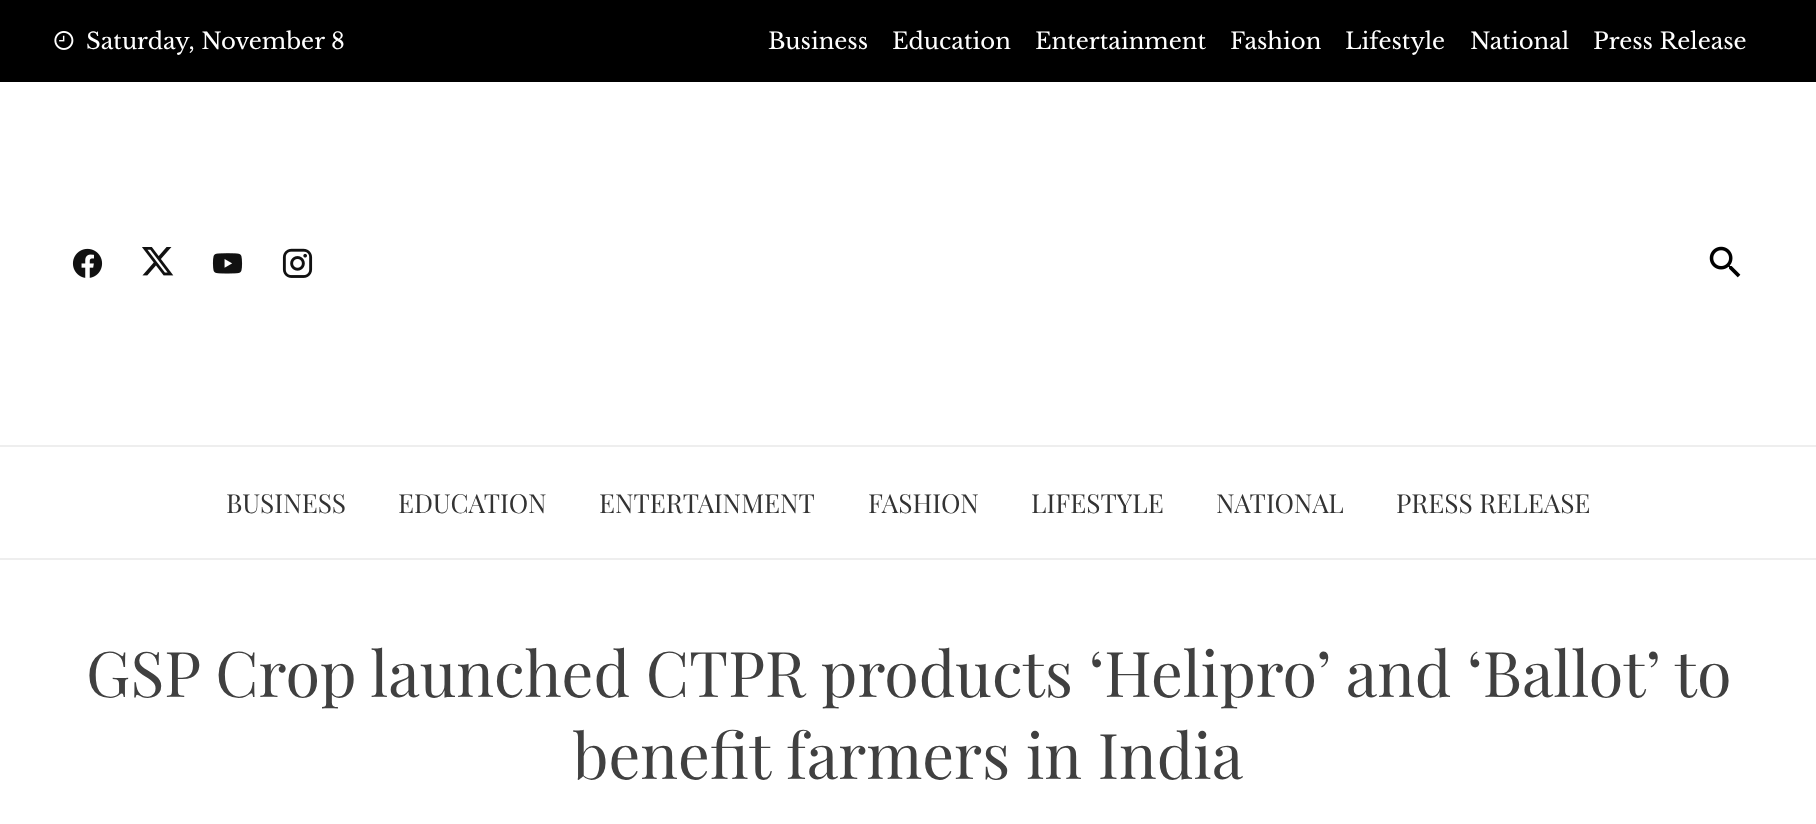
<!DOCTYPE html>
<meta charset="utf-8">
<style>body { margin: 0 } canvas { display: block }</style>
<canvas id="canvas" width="1816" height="824"></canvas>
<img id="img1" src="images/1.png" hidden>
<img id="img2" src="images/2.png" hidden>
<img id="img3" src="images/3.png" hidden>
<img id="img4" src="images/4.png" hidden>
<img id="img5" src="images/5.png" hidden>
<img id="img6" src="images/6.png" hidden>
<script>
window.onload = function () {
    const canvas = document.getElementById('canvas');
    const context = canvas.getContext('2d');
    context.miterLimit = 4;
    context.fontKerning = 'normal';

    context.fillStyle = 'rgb(255, 255, 255)';
    context.fillRect(0, 0, 1816, 824);
    context.fillStyle = 'rgb(0, 0, 0)';
    context.fillRect(0, 0, 1816, 82);
    context.drawImage(document.getElementById('img1'), 54, 31, 20, 19);
    context.drawImage(document.getElementById('img2'), 72, 248, 31, 30);
    context.drawImage(document.getElementById('img3'), 142, 247, 32, 29);
    context.drawImage(document.getElementById('img4'), 212, 253, 31, 21);
    context.drawImage(document.getElementById('img5'), 282, 248, 31, 30);
    context.drawImage(document.getElementById('img6'), 1709, 246, 32, 32);
    context.fillStyle = 'rgb(238, 238, 238)';
    context.fillRect(0, 445, 1816, 2);
    context.fillRect(0, 558, 1816, 2);
    context.font = '22.75px Libre Baskerville';
    context.fillStyle = 'rgb(255, 255, 255)';
    context.fillText('Saturday, November 8', 86, 49);
    context.fillText('Business', 768, 49);
    context.fillText('Education', 892, 49);
    context.fillText('Entertainment', 1035, 49);
    context.fillText('Fashion', 1230, 49);
    context.fillText('Lifestyle', 1345, 49);
    context.fillText('National', 1470, 49);
    context.fillText('Press Release', 1593, 49);
    context.font = '26.25px Playfair Display';
    context.fillStyle = 'rgb(51, 51, 51)';
    context.fillText('BUSINESS', 226, 513);
    context.fillText('EDUCATION', 398, 513);
    context.fillText('ENTERTAINMENT', 599, 513);
    context.fillText('FASHION', 868, 513);
    context.fillText('LIFESTYLE', 1031, 513);
    context.fillText('NATIONAL', 1216, 513);
    context.fillText('PRESS RELEASE', 1396, 513);
    context.font = '63px Playfair Display';
    context.fillStyle = 'rgb(64, 64, 64)';
    context.fillText('GSP Crop launched CTPR products ‘Helipro’ and ‘Ballot’ to', 86, 697);
    context.fillText('benefit farmers in India', 573, 779);
};
</script>
